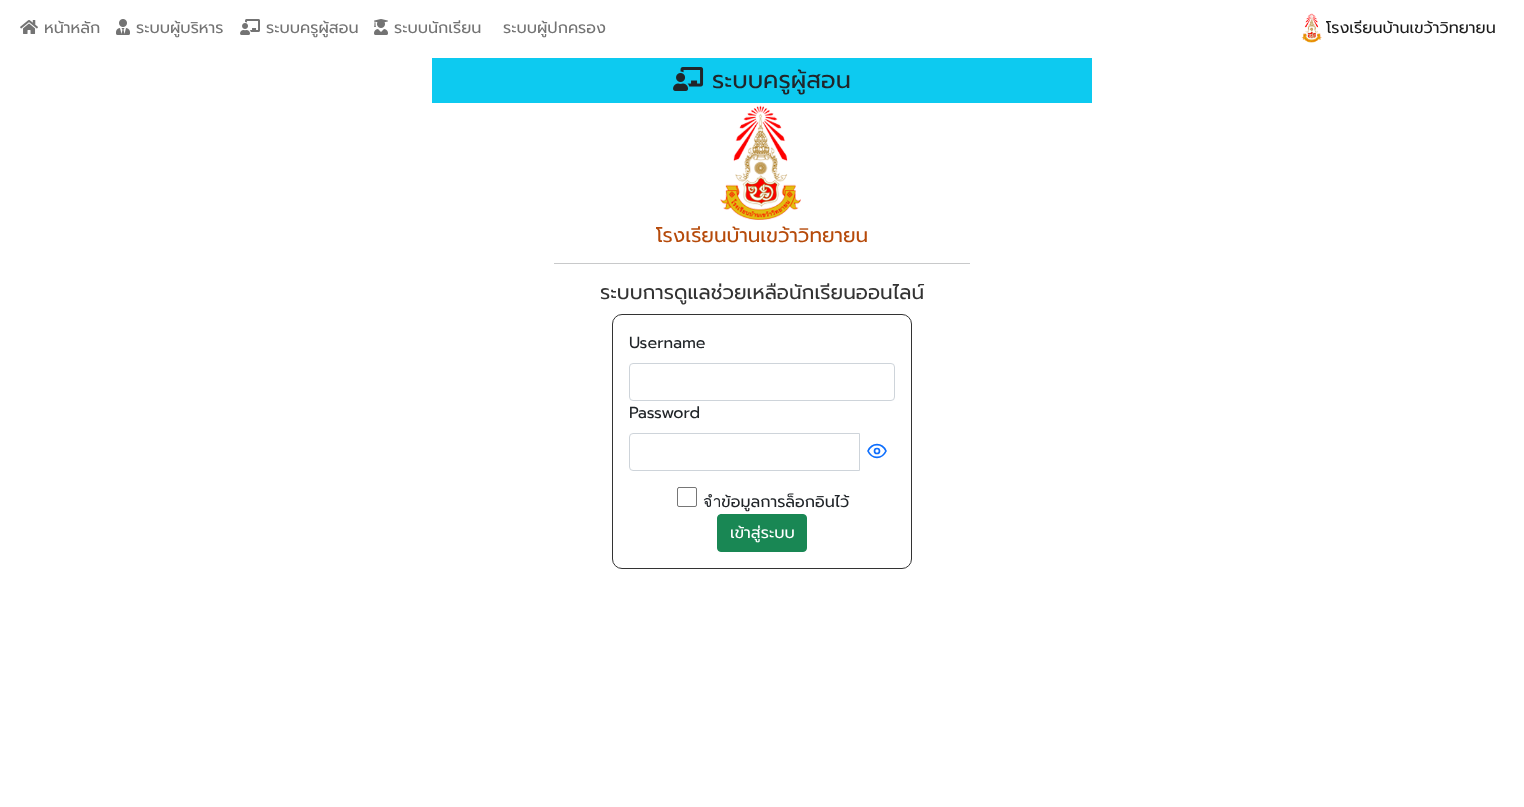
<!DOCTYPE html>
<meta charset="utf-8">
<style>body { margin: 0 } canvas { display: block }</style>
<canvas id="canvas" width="1524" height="807"></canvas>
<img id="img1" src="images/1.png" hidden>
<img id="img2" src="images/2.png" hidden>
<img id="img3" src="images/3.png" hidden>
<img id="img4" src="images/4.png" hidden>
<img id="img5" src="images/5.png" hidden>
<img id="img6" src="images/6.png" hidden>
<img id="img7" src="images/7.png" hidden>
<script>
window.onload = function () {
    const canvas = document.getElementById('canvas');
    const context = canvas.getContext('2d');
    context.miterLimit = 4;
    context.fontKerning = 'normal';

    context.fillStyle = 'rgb(255, 255, 255)';
    context.fillRect(0, 0, 1524, 807);
    context.drawImage(document.getElementById('img1'), 20, 20, 18, 14);
    context.drawImage(document.getElementById('img2'), 116, 19, 14, 16);
    context.drawImage(document.getElementById('img3'), 240, 19, 20, 16);
    context.drawImage(document.getElementById('img4'), 374, 19, 14, 16);
    context.drawImage(document.getElementById('img5'), 1301, 13, 21, 30);
    context.fillStyle = 'rgb(13, 202, 240)';
    context.fillRect(432, 58, 660, 45);
    context.drawImage(document.getElementById('img6'), 673, 67, 31, 24);
    context.drawImage(document.getElementById('img7'), 720, 105, 81, 115);
    context.fillStyle = 'rgb(200, 201, 202)';
    context.fillRect(554, 263, 416, 1);
    context.beginPath();
    context.roundRect(612.5, 314.5, 299, 254, 9.5);
    context.strokeStyle = 'rgb(51, 51, 51)';
    context.stroke();
    context.beginPath();
    context.roundRect(629.5, 363.5, 265, 37, 3.5);
    context.strokeStyle = 'rgb(206, 212, 218)';
    context.stroke();
    context.beginPath();
    context.roundRect(629.5, 433.5, 230, 37, [3.5, 0, 0, 3.5]);
    context.stroke();
    context.beginPath();
    context.moveTo(868, 451);
    context.bezierCurveTo(872, 442.5, 882, 442.5, 886, 451);
    context.bezierCurveTo(882, 459.5, 872, 459.5, 868, 451);
    context.closePath();
    context.strokeStyle = 'rgb(13, 110, 253)';
    context.lineWidth = 1.7;
    context.lineCap = 'round';
    context.lineJoin = 'round';
    context.stroke();
    context.beginPath();
    context.arc(877, 451, 2.5, 0, 2 * Math.PI);
    context.stroke();
    context.beginPath();
    context.roundRect(677.5, 487.5, 19, 19, 1.5);
    context.strokeStyle = 'rgb(118, 118, 118)';
    context.lineWidth = 1;
    context.lineJoin = 'miter';
    context.stroke();
    context.fillStyle = 'rgb(25, 135, 84)';
    context.beginPath();
    context.roundRect(717.5, 514.5, 89, 37, 3.5);
    context.fill();
    context.strokeStyle = 'rgb(25, 135, 84)';
    context.stroke();
    context.font = '16px Prompt';
    context.fillStyle = 'rgb(115, 115, 115)';
    context.fillText('หน้าหลัก', 44, 33);
    context.fillText('ระบบผู้บริหาร', 136, 33);
    context.fillText('ระบบครูผู้สอน', 266, 33);
    context.fillText('ระบบนักเรียน', 394, 33);
    context.fillText('ระบบผู้ปกครอง', 503, 33);
    context.fillStyle = 'rgb(26, 26, 26)';
    context.fillText('โรงเรียนบ้านเขว้าวิทยายน', 1326, 33);
    context.font = '24px Prompt';
    context.fillStyle = 'rgb(33, 37, 41)';
    context.fillText('ระบบครูผู้สอน', 712, 88);
    context.font = '20px Prompt';
    context.fillStyle = 'rgb(182, 74, 10)';
    context.fillText('โรงเรียนบ้านเขว้าวิทยายน', 656, 242);
    context.fillStyle = 'rgb(51, 51, 51)';
    context.fillText('ระบบการดูแลช่วยเหลือนักเรียนออนไลน์', 600, 299);
    context.font = '16px Prompt';
    context.fillStyle = 'rgb(33, 37, 41)';
    context.fillText('Username', 629, 348);
    context.fillText('Password', 629, 418);
    context.fillText('จำข้อมูลการล็อกอินไว้', 703, 507);
    context.fillStyle = 'rgb(255, 255, 255)';
    context.fillText('เข้าสู่ระบบ', 730, 538);
};
</script>
